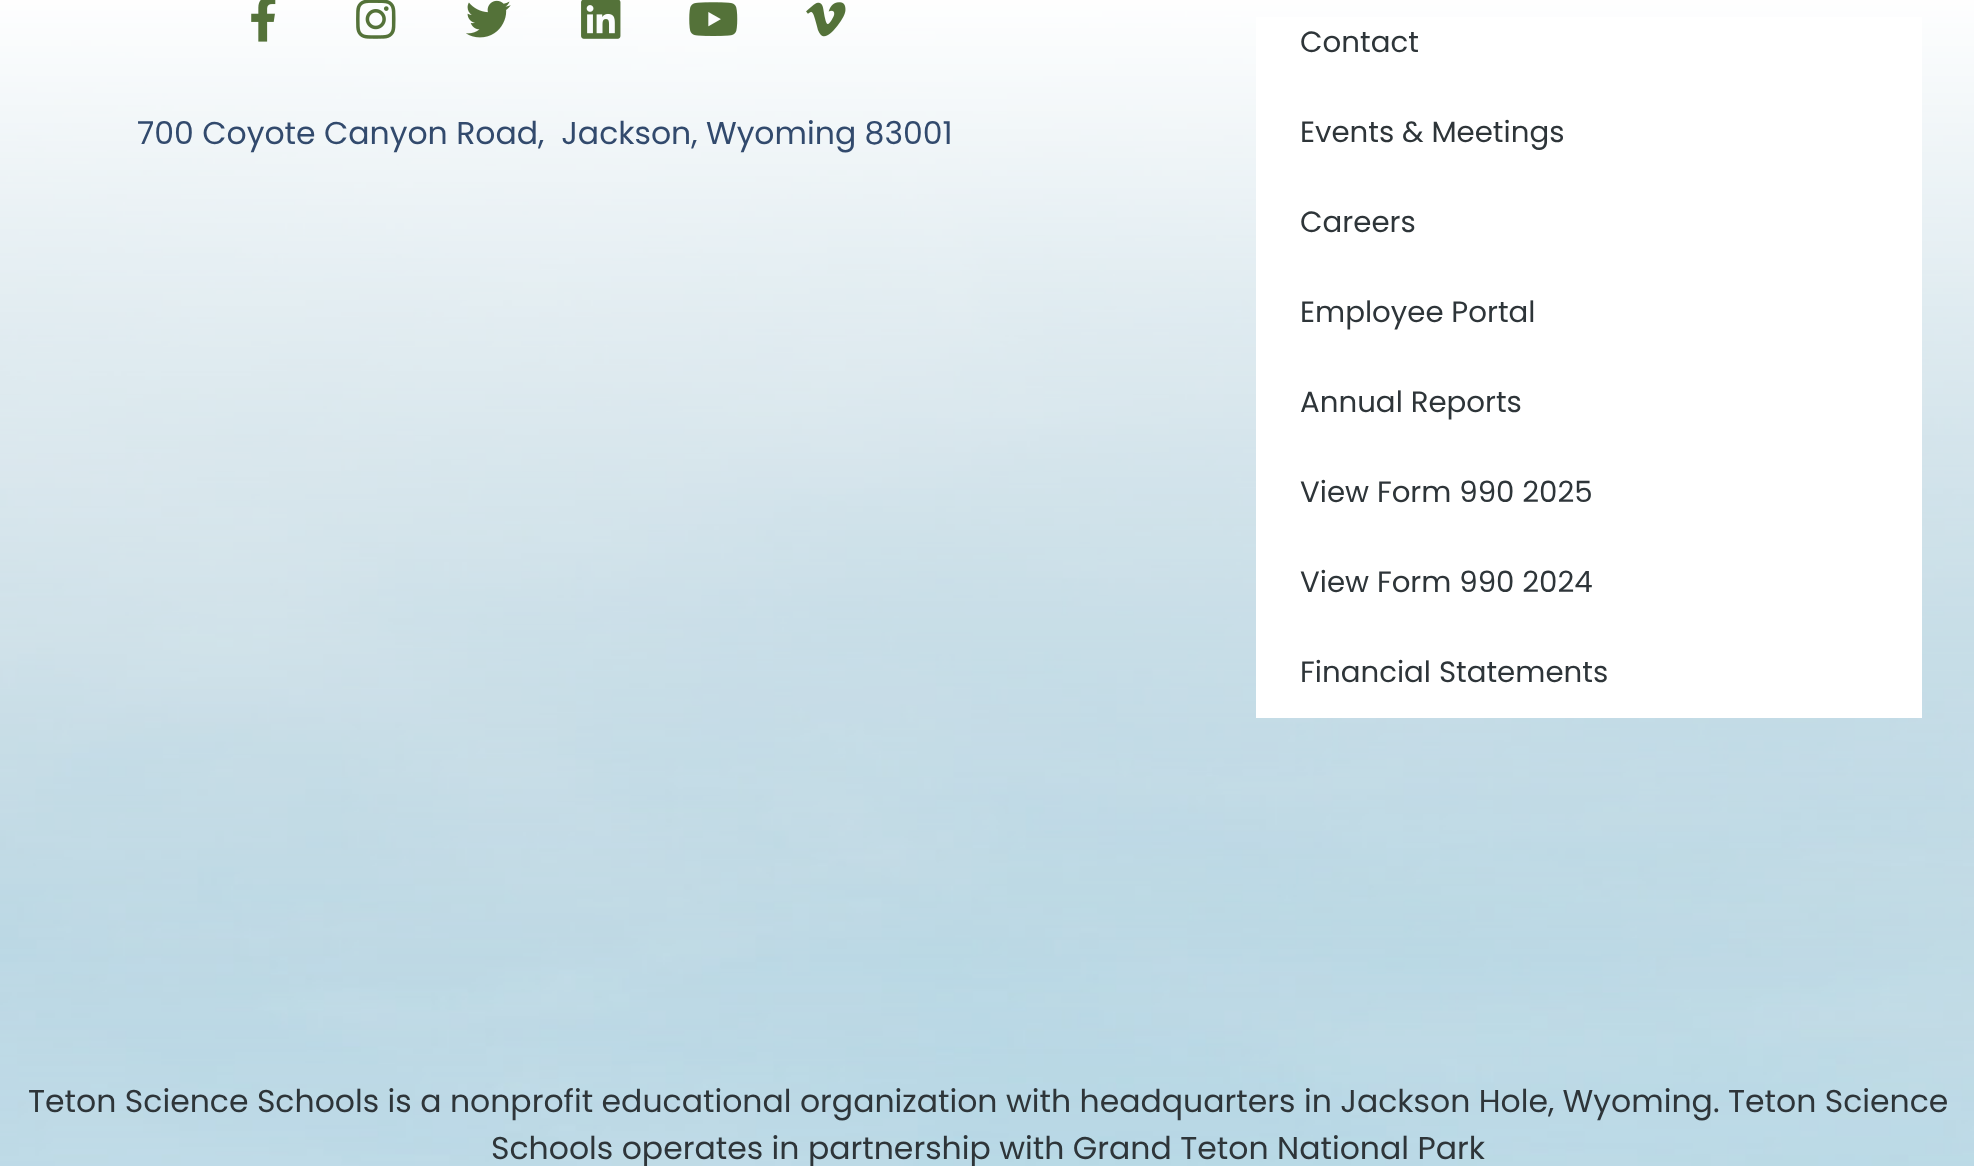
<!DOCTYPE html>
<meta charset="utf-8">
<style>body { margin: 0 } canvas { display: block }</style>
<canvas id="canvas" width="1974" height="1166"></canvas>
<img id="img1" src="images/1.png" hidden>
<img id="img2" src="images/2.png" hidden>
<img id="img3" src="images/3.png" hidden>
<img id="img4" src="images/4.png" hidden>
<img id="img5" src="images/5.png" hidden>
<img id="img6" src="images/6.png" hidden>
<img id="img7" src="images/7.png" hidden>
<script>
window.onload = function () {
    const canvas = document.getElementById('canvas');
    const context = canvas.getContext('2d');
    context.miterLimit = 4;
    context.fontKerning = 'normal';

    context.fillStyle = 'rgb(255, 255, 255)';
    context.fillRect(0, 0, 1974, 1166);
    context.drawImage(document.getElementById('img1'), 0, 0, 1974, 1166);
    context.drawImage(document.getElementById('img2'), 251, 0, 25, 42);
    context.drawImage(document.getElementById('img3'), 356, 0, 40, 39);
    context.drawImage(document.getElementById('img4'), 466, 0, 45, 38);
    context.drawImage(document.getElementById('img5'), 581, 0, 40, 39);
    context.drawImage(document.getElementById('img6'), 689, 2, 49, 34);
    context.drawImage(document.getElementById('img7'), 806, 2, 40, 35);
    context.fillRect(1256, 17, 666, 701);
    context.font = '31.5px Poppins';
    context.fillStyle = 'rgb(50, 74, 109)';
    context.fillText('700 Coyote Canyon Road,  Jackson, Wyoming 83001', 137, 144);
    context.font = '29.25px Poppins';
    context.fillStyle = 'rgb(46, 53, 57)';
    context.fillText('Contact', 1300, 52);
    context.fillText('Events & Meetings', 1300, 142);
    context.fillText('Careers', 1300, 232);
    context.fillText('Employee Portal', 1300, 322);
    context.fillText('Annual Reports', 1300, 412);
    context.fillText('View Form 990 2025', 1300, 502);
    context.fillText('View Form 990 2024', 1300, 592);
    context.fillText('Financial Statements', 1300, 682);
    context.font = '31.5px Poppins';
    context.fillText('Teton Science Schools is a nonprofit educational organization with headquarters in Jackson Hole, Wyoming. Teton Science', 28, 1112);
    context.fillText('Schools operates in partnership with Grand Teton National Park', 491, 1159);
};
</script>
